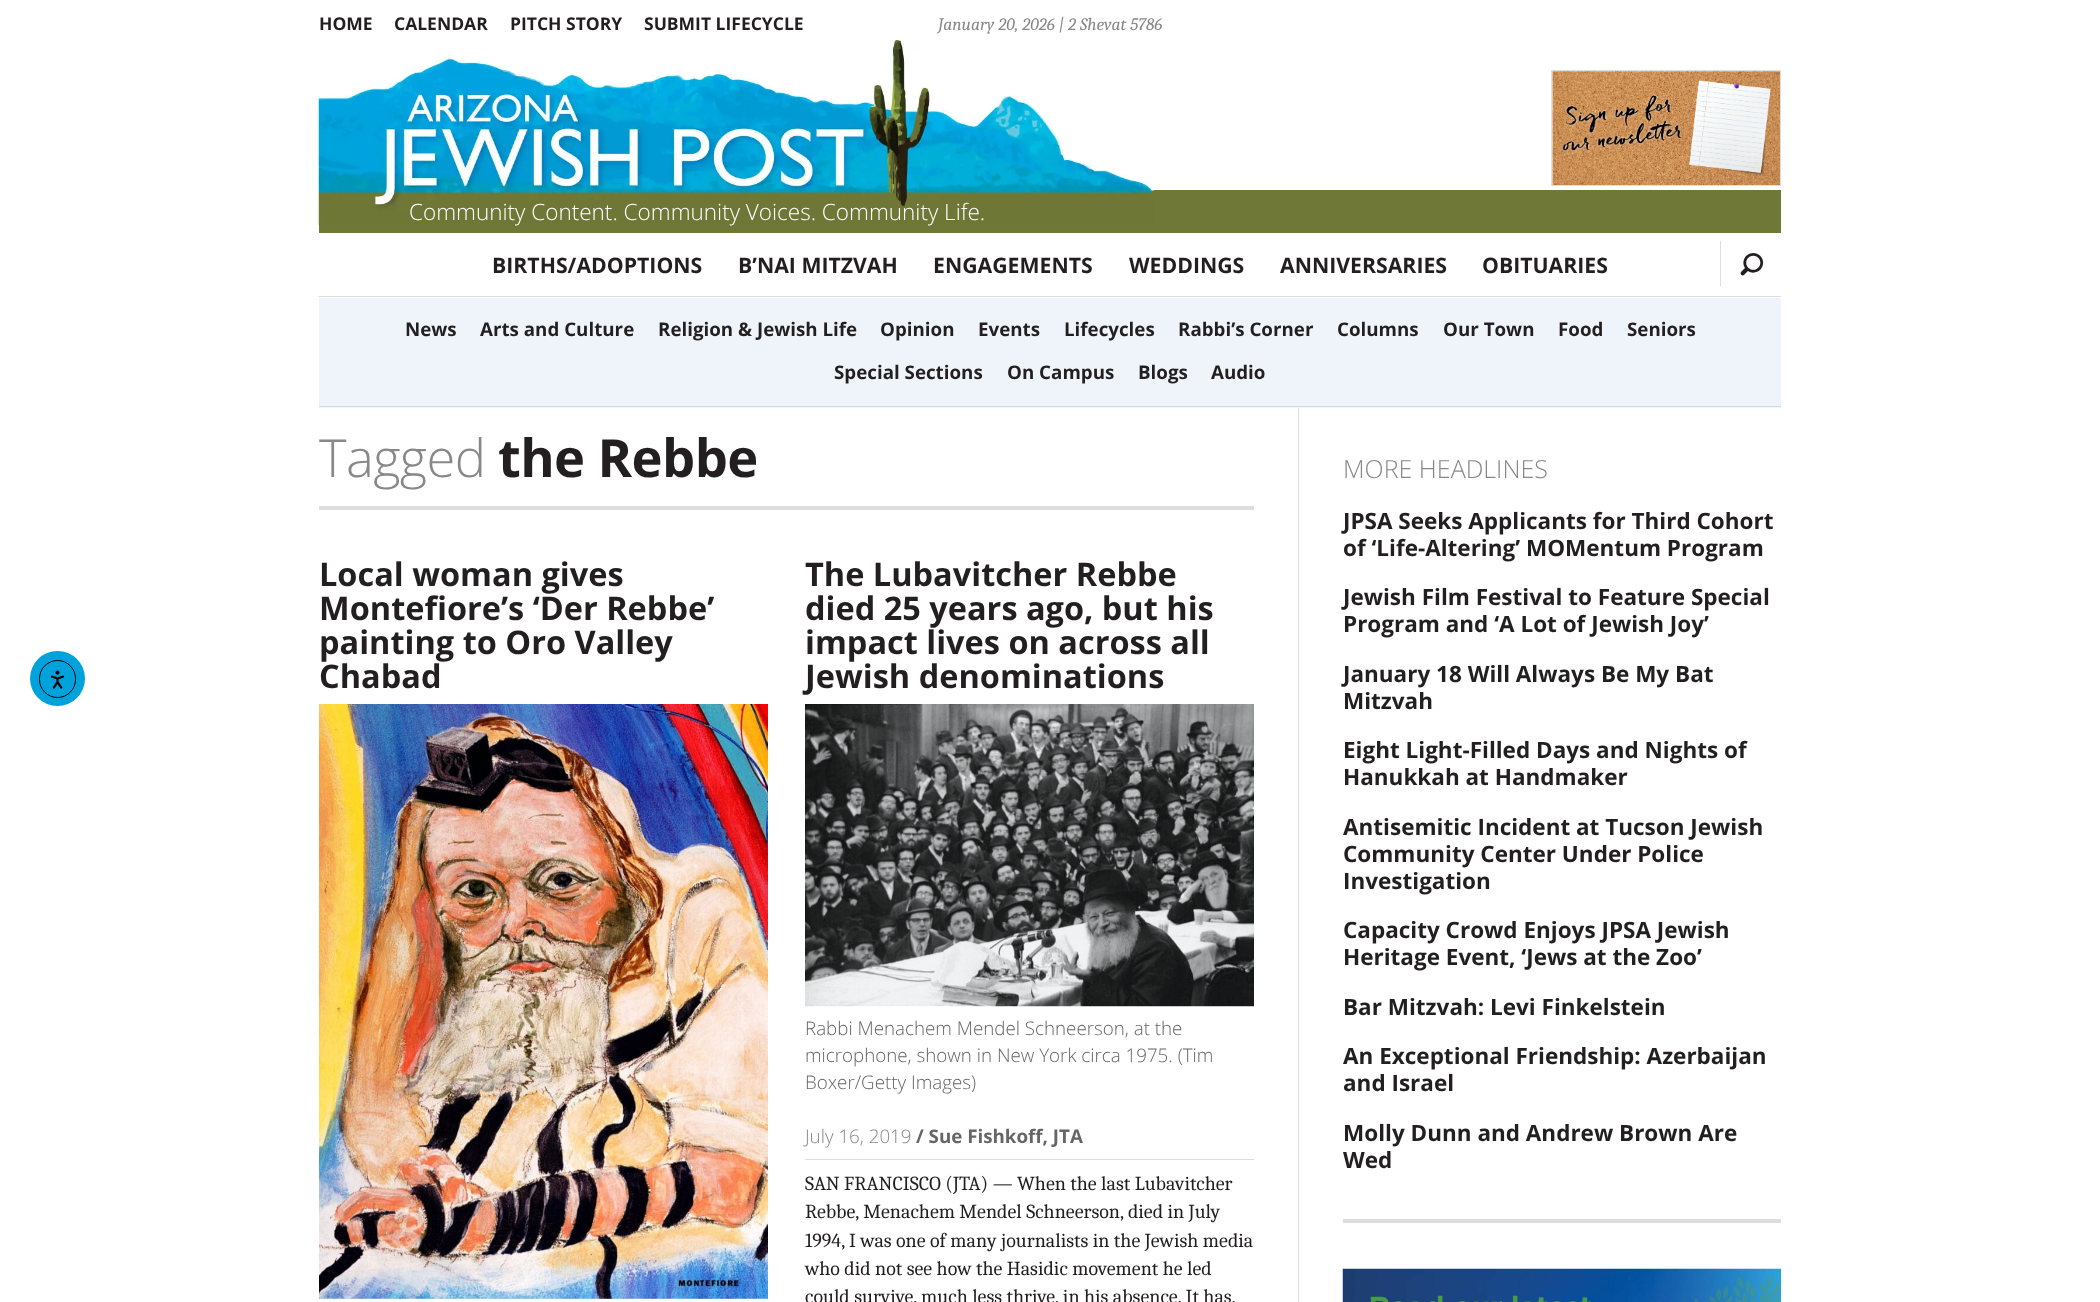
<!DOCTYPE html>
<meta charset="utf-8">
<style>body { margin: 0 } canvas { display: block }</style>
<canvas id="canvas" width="2100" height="1302"></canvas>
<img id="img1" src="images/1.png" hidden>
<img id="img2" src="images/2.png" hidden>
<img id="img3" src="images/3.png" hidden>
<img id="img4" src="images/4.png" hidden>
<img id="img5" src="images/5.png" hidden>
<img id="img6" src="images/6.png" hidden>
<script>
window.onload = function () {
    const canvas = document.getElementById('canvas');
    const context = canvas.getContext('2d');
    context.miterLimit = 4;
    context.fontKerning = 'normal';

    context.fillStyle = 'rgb(255, 255, 255)';
    context.fillRect(0, 0, 2100, 1302);
    context.fillStyle = 'rgb(0, 162, 220)';
    context.beginPath();
    context.arc(57.5, 678.5, 27.5, 0, 2 * Math.PI);
    context.fill();
    context.beginPath();
    context.roundRect(39.5, 660.5, 36, 37, 18);
    context.strokeStyle = 'rgb(0, 0, 0)';
    context.stroke();
    context.drawImage(document.getElementById('img1'), 50, 670, 14, 19);
    context.strokeStyle = 'rgb(221, 221, 221)';
    context.strokeRect(1551.5, 70.5, 229, 115);
    context.drawImage(document.getElementById('img2'), 1552, 71, 228, 114);
    context.fillStyle = 'rgb(112, 120, 55)';
    context.fillRect(319, 190, 1462, 43);
    context.drawImage(document.getElementById('img3'), 318, 40, 836, 185);
    context.fillStyle = 'rgb(221, 221, 221)';
    context.fillRect(319, 296, 1462, 1);
    context.fillRect(1720, 241, 1, 45);
    context.fillStyle = 'rgb(238, 244, 249)';
    context.fillRect(319, 298, 1462, 110);
    context.fillStyle = 'rgb(200, 220, 236)';
    context.fillRect(319, 406, 1462, 1);
    context.fillStyle = 'rgb(221, 221, 221)';
    context.fillRect(1298, 408, 1, 894);
    context.fillRect(319, 506, 935, 4);
    context.drawImage(document.getElementById('img4'), 319, 704, 449, 595);
    context.drawImage(document.getElementById('img5'), 805, 704, 449, 303);
    context.fillRect(805, 1159, 449, 1);
    context.fillRect(1343, 1219, 438, 4);
    context.drawImage(document.getElementById('img6'), 1342, 1268, 440, 34);
    context.font = 'bold 17.5px Open Sans';
    context.fillStyle = 'rgb(35, 31, 32)';
    context.fillText('HOME', 319, 30);
    context.fillText('CALENDAR', 394, 30);
    context.fillText('PITCH STORY', 510, 30);
    context.fillText('SUBMIT LIFECYCLE', 644, 30);
    context.font = 'italic 17.5px Caladea';
    context.fillStyle = 'rgb(136, 136, 136)';
    context.fillText('January 20, 2026 | 2 Shevat 5786', 938, 30);
    context.font = '300 22.5px Open Sans';
    context.fillStyle = 'rgb(255, 255, 255)';
    context.fillText('Community Content. Community Voices. Community Life.', 409, 220);
    context.font = 'bold 21.25px Open Sans';
    context.fillStyle = 'rgb(35, 31, 32)';
    context.fillText('BIRTHS/ADOPTIONS', 492, 273);
    context.fillText('B’NAI MITZVAH', 738, 273);
    context.fillText('ENGAGEMENTS', 933, 273);
    context.fillText('WEDDINGS', 1129, 273);
    context.fillText('ANNIVERSARIES', 1280, 273);
    context.fillText('OBITUARIES', 1482, 273);
    context.font = '22.5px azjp';
    context.fillText('+', 1740, 274);
    context.font = 'bold 18.75px Open Sans';
    context.fillText('News', 405, 336);
    context.fillText('Arts and Culture', 480, 336);
    context.fillText('Religion & Jewish Life', 658, 336);
    context.fillText('Opinion', 880, 336);
    context.fillText('Events', 978, 336);
    context.fillText('Lifecycles', 1064, 336);
    context.fillText('Rabbi’s Corner', 1178, 336);
    context.fillText('Columns', 1337, 336);
    context.fillText('Our Town', 1443, 336);
    context.fillText('Food', 1558, 336);
    context.fillText('Seniors', 1627, 336);
    context.fillText('Special Sections', 834, 379);
    context.fillText('On Campus', 1007, 379);
    context.fillText('Blogs', 1138, 379);
    context.fillText('Audio', 1211, 379);
    context.letterSpacing = '-0.6px';
    context.font = '300 52.5px Open Sans';
    context.fillStyle = 'rgb(136, 136, 136)';
    context.fillText('Tagged', 319, 477);
    context.font = 'bold 52.5px Open Sans';
    context.fillStyle = 'rgb(35, 31, 32)';
    context.fillText('the Rebbe', 498, 477);
    context.letterSpacing = '0px';
    context.font = 'bold 32.5px Open Sans';
    context.fillText('Local woman gives', 319, 586);
    context.fillText('Montefiore’s ‘Der Rebbe’', 319, 620);
    context.fillText('painting to Oro Valley', 319, 654);
    context.fillText('Chabad', 319, 688);
    context.fillText('The Lubavitcher Rebbe', 805, 586);
    context.fillText('died 25 years ago, but his', 805, 620);
    context.fillText('impact lives on across all', 805, 654);
    context.fillText('Jewish denominations', 805, 688);
    context.font = '300 18.75px Open Sans';
    context.fillStyle = 'rgb(102, 102, 102)';
    context.fillText('Rabbi Menachem Mendel Schneerson, at the', 805, 1035);
    context.fillText('microphone, shown in New York circa 1975. (Tim', 805, 1062);
    context.fillText('Boxer/Getty Images)', 805, 1089);
    context.fillStyle = 'rgb(136, 136, 136)';
    context.fillText('July 16, 2019', 805, 1143);
    context.font = 'bold 18.75px Open Sans';
    context.fillStyle = 'rgb(102, 102, 102)';
    context.fillText('/ Sue Fishkoff, JTA', 916, 1143);
    context.font = '20px Caladea';
    context.fillStyle = 'rgb(35, 31, 32)';
    context.fillText('SAN FRANCISCO (JTA) — When the last Lubavitcher', 805, 1190);
    context.fillText('Rebbe, Menachem Mendel Schneerson, died in July', 805, 1218);
    context.fillText('1994, I was one of many journalists in the Jewish media', 805, 1247);
    context.fillText('who did not see how the Hasidic movement he led', 805, 1275);
    context.fillText('could survive, much less thrive, in his absence. It has,', 805, 1303);
    context.font = '300 25px Open Sans';
    context.fillStyle = 'rgb(136, 136, 136)';
    context.fillText('MORE HEADLINES', 1343, 478);
    context.font = 'bold 22.5px Open Sans';
    context.fillStyle = 'rgb(35, 31, 32)';
    context.fillText('JPSA Seeks Applicants for Third Cohort', 1343, 529);
    context.fillText('of ‘Life-Altering’ MOMentum Program', 1343, 556);
    context.fillText('Jewish Film Festival to Feature Special', 1343, 605);
    context.fillText('Program and ‘A Lot of Jewish Joy’', 1343, 632);
    context.fillText('January 18 Will Always Be My Bat', 1343, 682);
    context.fillText('Mitzvah', 1343, 709);
    context.fillText('Eight Light-Filled Days and Nights of', 1343, 758);
    context.fillText('Hanukkah at Handmaker', 1343, 785);
    context.fillText('Antisemitic Incident at Tucson Jewish', 1343, 835);
    context.fillText('Community Center Under Police', 1343, 862);
    context.fillText('Investigation', 1343, 889);
    context.fillText('Capacity Crowd Enjoys JPSA Jewish', 1343, 938);
    context.fillText('Heritage Event, ‘Jews at the Zoo’', 1343, 965);
    context.fillText('Bar Mitzvah: Levi Finkelstein', 1343, 1015);
    context.fillText('An Exceptional Friendship: Azerbaijan', 1343, 1064);
    context.fillText('and Israel', 1343, 1091);
    context.fillText('Molly Dunn and Andrew Brown Are', 1343, 1141);
    context.fillText('Wed', 1343, 1168);
};
</script>
